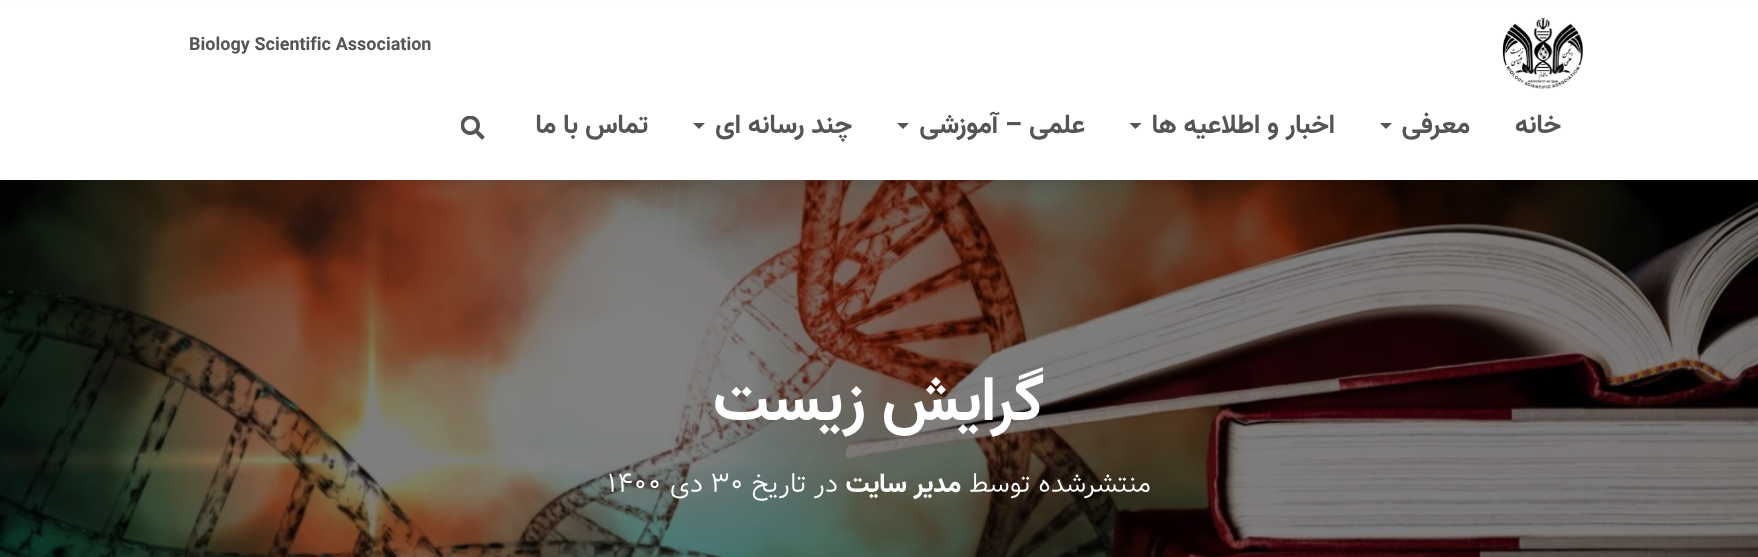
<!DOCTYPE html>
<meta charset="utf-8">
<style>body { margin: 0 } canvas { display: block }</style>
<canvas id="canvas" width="1758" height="557"></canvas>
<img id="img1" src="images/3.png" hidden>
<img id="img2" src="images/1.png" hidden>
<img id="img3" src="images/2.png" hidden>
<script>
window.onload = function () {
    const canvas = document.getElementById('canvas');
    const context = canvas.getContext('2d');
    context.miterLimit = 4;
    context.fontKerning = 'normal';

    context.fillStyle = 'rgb(255, 255, 255)';
    context.fillRect(0, 0, 1758, 557);
    context.drawImage(document.getElementById('img1'), 0, 180, 1758, 377);
    context.fillStyle = 'rgba(0, 0, 0, 0.15)';
    context.filter = 'blur(7.5px)';
    context.beginPath();
    context.rect(6, 15, 1746, 168);
    context.fill();
    context.filter = 'none';
    context.fillStyle = 'rgb(255, 255, 255)';
    context.fillRect(0, 4, 1758, 176);
    context.drawImage(document.getElementById('img2'), 1502, 17, 82, 72);
    context.fillStyle = 'rgb(85, 85, 85)';
    context.beginPath();
    context.moveTo(1380, 123);
    context.lineTo(1392, 123);
    context.lineTo(1386, 129);
    context.closePath();
    context.fill();
    context.beginPath();
    context.moveTo(1129.5, 123);
    context.lineTo(1141.5, 123);
    context.lineTo(1135.5, 129);
    context.closePath();
    context.fill();
    context.beginPath();
    context.moveTo(897, 123);
    context.lineTo(909, 123);
    context.lineTo(903, 129);
    context.closePath();
    context.fill();
    context.beginPath();
    context.moveTo(693, 123);
    context.lineTo(705, 123);
    context.lineTo(699, 129);
    context.closePath();
    context.fill();
    context.drawImage(document.getElementById('img3'), 461, 116, 24, 24);
    context.font = 'bold 18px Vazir';
    context.fillText('Biology Scientific Association', 189, 50);
    context.direction = 'rtl';
    context.font = 'bold 27px Vazir';
    context.fillText('خانه', 1561, 133);
    context.fillText('معرفی', 1470, 133);
    context.fillText('اخبار و اطلاعیه ها', 1335, 133);
    context.fillText('علمی – آموزشی', 1085, 133);
    context.fillText('چند رسانه ای', 852, 133);
    context.fillText('تماس با ما', 648, 133);
    context.font = 'bold 63px Vazir';
    context.fillStyle = 'rgb(255, 255, 255)';
    context.fillText('گرایش زیست', 1045, 420);
    context.font = '300 27px Vazir';
    context.fillText('منتشرشده توسط', 1151, 492);
    context.font = 'bold 27px Vazir';
    context.fillText('مدیر سایت', 961, 492);
    context.font = '300 27px Vazir';
    context.fillText('در تاریخ', 838, 492);
    context.direction = 'ltr';
    context.fillText('۳۰', 710, 492);
    context.direction = 'rtl';
    context.fillText('دی', 703, 492);
    context.direction = 'ltr';
    context.fillText('۱۴۰۰', 607, 492);
};
</script>
